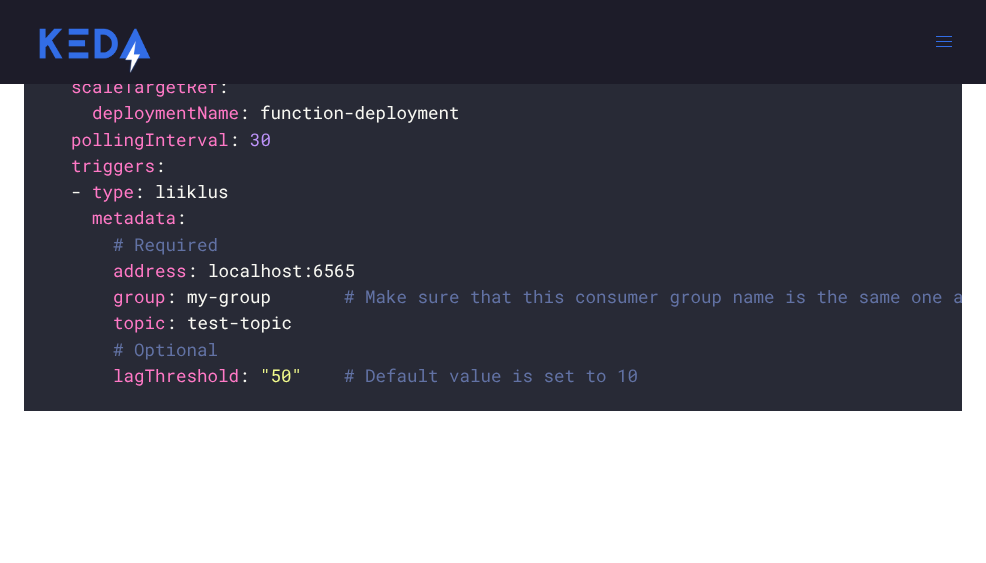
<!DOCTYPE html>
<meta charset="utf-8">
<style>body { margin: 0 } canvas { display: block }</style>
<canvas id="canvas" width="986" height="563"></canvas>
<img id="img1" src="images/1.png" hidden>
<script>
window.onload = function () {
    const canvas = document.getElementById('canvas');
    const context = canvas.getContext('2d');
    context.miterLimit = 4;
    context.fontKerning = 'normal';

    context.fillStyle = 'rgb(255, 255, 255)';
    context.fillRect(0, 0, 986, 563);
    context.fillStyle = 'rgb(40, 42, 54)';
    context.fillRect(24, 84, 938, 327);
    context.font = '17.5px Roboto Mono';
    context.fillStyle = 'rgb(255, 121, 198)';
    context.fillText('scaleTargetRef', 71, 93);
    context.fillStyle = 'rgb(248, 248, 242)';
    context.fillText(':', 218, 93);
    context.fillStyle = 'rgb(29, 28, 41)';
    context.fillRect(0, 0, 986, 84);
    context.fillStyle = 'rgb(50, 109, 230)';
    context.fillRect(936, 46, 16, 1);
    context.fillRect(936, 41, 16, 1);
    context.fillRect(936, 36, 16, 1);
    context.drawImage(document.getElementById('img1'), 39, 28, 112, 45);
    context.fillStyle = 'rgb(255, 121, 198)';
    context.fillText('deploymentName', 92, 119);
    context.fillStyle = 'rgb(248, 248, 242)';
    context.fillText(': function-deployment', 239, 119);
    context.fillStyle = 'rgb(255, 121, 198)';
    context.fillText('pollingInterval', 71, 146);
    context.fillStyle = 'rgb(248, 248, 242)';
    context.fillText(':', 229, 146);
    context.fillStyle = 'rgb(189, 147, 249)';
    context.fillText('30', 250, 146);
    context.fillStyle = 'rgb(255, 121, 198)';
    context.fillText('triggers', 71, 172);
    context.fillStyle = 'rgb(248, 248, 242)';
    context.fillText(':', 155, 172);
    context.fillText('-', 71, 198);
    context.fillStyle = 'rgb(255, 121, 198)';
    context.fillText('type', 92, 198);
    context.fillStyle = 'rgb(248, 248, 242)';
    context.fillText(': liiklus', 134, 198);
    context.fillStyle = 'rgb(255, 121, 198)';
    context.fillText('metadata', 92, 224);
    context.fillStyle = 'rgb(248, 248, 242)';
    context.fillText(':', 176, 224);
    context.fillStyle = 'rgb(98, 114, 164)';
    context.fillText('# Required', 113, 251);
    context.fillStyle = 'rgb(255, 121, 198)';
    context.fillText('address', 113, 277);
    context.fillStyle = 'rgb(248, 248, 242)';
    context.fillText(': localhost:6565', 187, 277);
    context.fillStyle = 'rgb(255, 121, 198)';
    context.fillText('group', 113, 303);
    context.fillStyle = 'rgb(248, 248, 242)';
    context.fillText(': my-group', 166, 303);
    context.save();
    context.beginPath();
    context.rect(24, 0, 938, 411);
    context.clip();
    context.fillStyle = 'rgb(98, 114, 164)';
    context.fillText('# Make sure that this consumer group name is the same one a', 344, 303);
    context.restore();
    context.fillStyle = 'rgb(255, 121, 198)';
    context.fillText('topic', 113, 329);
    context.fillStyle = 'rgb(248, 248, 242)';
    context.fillText(': test-topic', 166, 329);
    context.fillStyle = 'rgb(98, 114, 164)';
    context.fillText('# Optional', 113, 356);
    context.fillStyle = 'rgb(255, 121, 198)';
    context.fillText('lagThreshold', 113, 382);
    context.fillStyle = 'rgb(248, 248, 242)';
    context.fillText(':', 239, 382);
    context.fillStyle = 'rgb(241, 250, 140)';
    context.fillText('"50"', 260, 382);
    context.fillStyle = 'rgb(98, 114, 164)';
    context.fillText('# Default value is set to 10', 344, 382);
};
</script>
